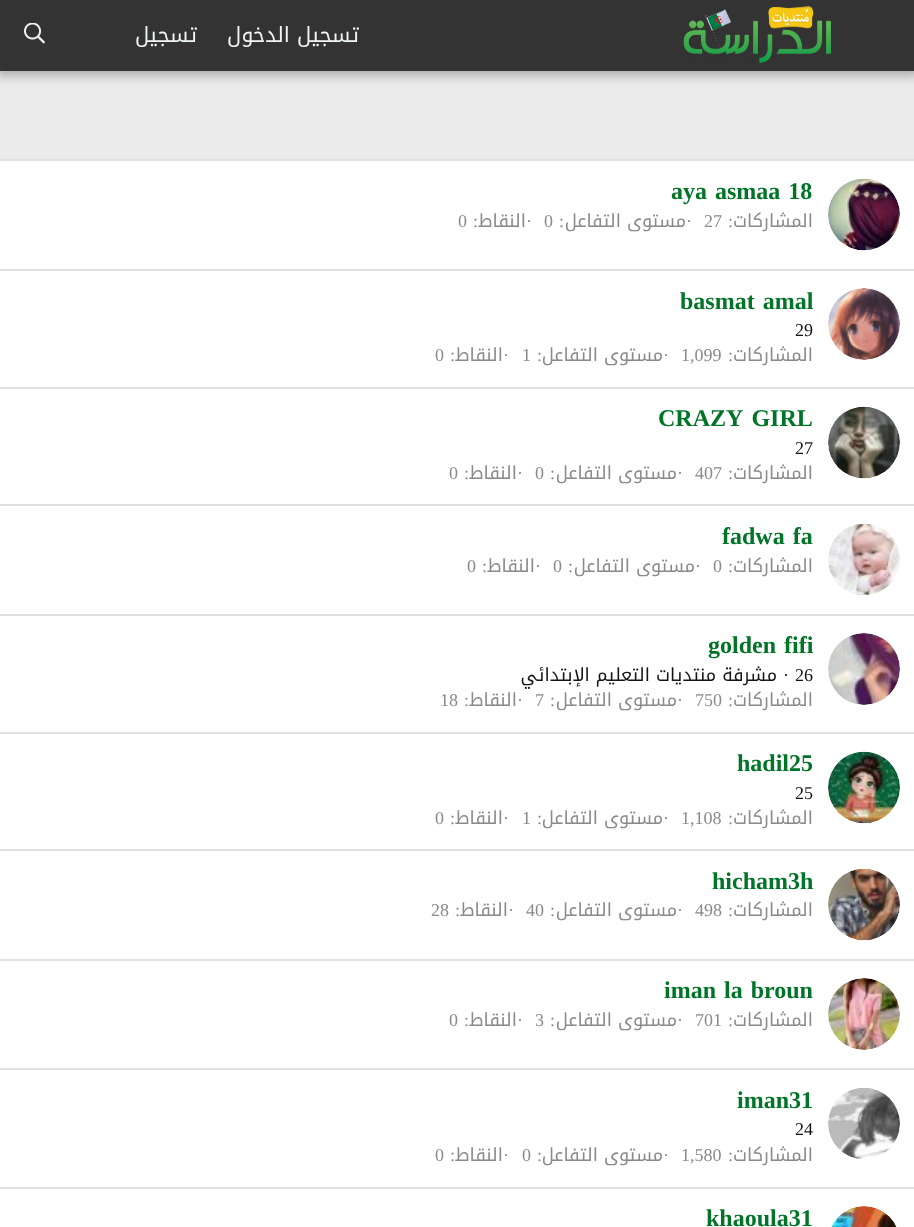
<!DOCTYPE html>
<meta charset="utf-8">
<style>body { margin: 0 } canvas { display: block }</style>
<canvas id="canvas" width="914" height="1227"></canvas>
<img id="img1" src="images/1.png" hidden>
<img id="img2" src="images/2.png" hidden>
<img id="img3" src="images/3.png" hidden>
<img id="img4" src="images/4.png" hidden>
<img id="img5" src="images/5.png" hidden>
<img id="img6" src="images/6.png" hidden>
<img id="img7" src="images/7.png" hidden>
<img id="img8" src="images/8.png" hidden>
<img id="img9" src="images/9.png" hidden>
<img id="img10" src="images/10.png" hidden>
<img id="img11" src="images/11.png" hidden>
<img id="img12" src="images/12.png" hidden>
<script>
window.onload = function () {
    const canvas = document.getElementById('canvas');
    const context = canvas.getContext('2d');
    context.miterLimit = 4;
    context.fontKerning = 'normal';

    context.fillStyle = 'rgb(235, 235, 235)';
    context.fillRect(0, 0, 914, 1227);
    context.fillStyle = 'rgba(0, 0, 0, 0.3)';
    context.filter = 'blur(6px)';
    context.beginPath();
    context.rect(-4, -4, 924, 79);
    context.fill();
    context.filter = 'none';
    context.fillStyle = 'rgb(51, 51, 51)';
    context.fillRect(0, 0, 914, 71);
    context.drawImage(document.getElementById('img1'), 683, 6, 148, 58);
    context.drawImage(document.getElementById('img2'), 24, 23, 21, 21);
    context.fillStyle = 'rgb(255, 255, 255)';
    context.fillRect(0, 161, 914, 1066);
    context.fillStyle = 'rgb(224, 224, 224)';
    context.fillRect(0, 159, 914, 2);
    context.drawImage(document.getElementById('img3'), 828, 178, 72, 73);
    context.fillRect(0, 269, 914, 2);
    context.drawImage(document.getElementById('img4'), 828, 288, 72, 72);
    context.fillRect(0, 387, 914, 2);
    context.drawImage(document.getElementById('img5'), 828, 406, 72, 73);
    context.fillRect(0, 504, 914, 2);
    context.drawImage(document.getElementById('img6'), 828, 523, 72, 73);
    context.fillRect(0, 614, 914, 2);
    context.drawImage(document.getElementById('img7'), 828, 633, 72, 72);
    context.fillRect(0, 732, 914, 2);
    context.drawImage(document.getElementById('img8'), 828, 751, 72, 73);
    context.fillRect(0, 849, 914, 2);
    context.drawImage(document.getElementById('img9'), 828, 868, 72, 73);
    context.fillRect(0, 959, 914, 2);
    context.drawImage(document.getElementById('img10'), 828, 978, 72, 72);
    context.fillRect(0, 1068, 914, 2);
    context.drawImage(document.getElementById('img11'), 828, 1087, 72, 72);
    context.fillRect(0, 1187, 914, 2);
    context.drawImage(document.getElementById('img12'), 831, 1206, 66, 21);
    context.direction = 'rtl';
    context.font = '21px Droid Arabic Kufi';
    context.fillStyle = 'rgb(240, 245, 241)';
    context.fillText('تسجيل الدخول', 359, 42);
    context.fillText('تسجيل', 197, 42);
    context.wordSpacing = '2px';
    context.direction = 'ltr';
    context.font = 'bold 24px Liberation Serif';
    context.fillStyle = 'rgb(0, 116, 39)';
    context.fillText('aya asmaa 18', 671, 199);
    context.wordSpacing = '0px';
    context.direction = 'rtl';
    context.font = '18px Droid Arabic Kufi';
    context.fillStyle = 'rgb(138, 138, 138)';
    context.fillText('المشاركات', 813, 227);
    context.direction = 'ltr';
    context.font = '18px Liberation Serif';
    context.fillText(':', 728, 227);
    context.fillText('27', 704, 227);
    context.fillText('·', 686, 227);
    context.direction = 'rtl';
    context.font = '18px Droid Arabic Kufi';
    context.fillText('مستوى التفاعل', 686, 227);
    context.direction = 'ltr';
    context.font = '18px Liberation Serif';
    context.fillText(':', 559, 227);
    context.fillText('0', 544, 227);
    context.fillText('·', 526, 227);
    context.direction = 'rtl';
    context.font = '18px Droid Arabic Kufi';
    context.fillText('النقاط', 526, 227);
    context.direction = 'ltr';
    context.font = '18px Liberation Serif';
    context.fillText(':', 473, 227);
    context.fillText('0', 458, 227);
    context.wordSpacing = '2px';
    context.font = 'bold 24px Liberation Serif';
    context.fillStyle = 'rgb(0, 116, 39)';
    context.fillText('basmat amal', 680, 309);
    context.wordSpacing = '0px';
    context.font = '18px Liberation Serif';
    context.fillStyle = 'rgb(20, 20, 20)';
    context.fillText('29', 795, 336);
    context.direction = 'rtl';
    context.font = '18px Droid Arabic Kufi';
    context.fillStyle = 'rgb(138, 138, 138)';
    context.fillText('المشاركات', 813, 361);
    context.direction = 'ltr';
    context.font = '18px Liberation Serif';
    context.fillText(':', 728, 361);
    context.fillText('1,099', 681, 361);
    context.fillText('·', 663, 361);
    context.direction = 'rtl';
    context.font = '18px Droid Arabic Kufi';
    context.fillText('مستوى التفاعل', 663, 361);
    context.direction = 'ltr';
    context.font = '18px Liberation Serif';
    context.fillText(':', 537, 361);
    context.fillText('1', 522, 361);
    context.fillText('·', 503, 361);
    context.direction = 'rtl';
    context.font = '18px Droid Arabic Kufi';
    context.fillText('النقاط', 503, 361);
    context.direction = 'ltr';
    context.font = '18px Liberation Serif';
    context.fillText(':', 450, 361);
    context.fillText('0', 435, 361);
    context.wordSpacing = '3px';
    context.font = 'bold 24px Liberation Serif';
    context.fillStyle = 'rgb(0, 116, 39)';
    context.fillText('CRAZY GIRL', 658, 426);
    context.wordSpacing = '0px';
    context.font = '18px Liberation Serif';
    context.fillStyle = 'rgb(20, 20, 20)';
    context.fillText('27', 795, 454);
    context.direction = 'rtl';
    context.font = '18px Droid Arabic Kufi';
    context.fillStyle = 'rgb(138, 138, 138)';
    context.fillText('المشاركات', 813, 479);
    context.direction = 'ltr';
    context.font = '18px Liberation Serif';
    context.fillText(':', 728, 479);
    context.fillText('407', 695, 479);
    context.fillText('·', 677, 479);
    context.direction = 'rtl';
    context.font = '18px Droid Arabic Kufi';
    context.fillText('مستوى التفاعل', 677, 479);
    context.direction = 'ltr';
    context.font = '18px Liberation Serif';
    context.fillText(':', 550, 479);
    context.fillText('0', 535, 479);
    context.fillText('·', 517, 479);
    context.direction = 'rtl';
    context.font = '18px Droid Arabic Kufi';
    context.fillText('النقاط', 517, 479);
    context.direction = 'ltr';
    context.font = '18px Liberation Serif';
    context.fillText(':', 464, 479);
    context.fillText('0', 449, 479);
    context.wordSpacing = '2px';
    context.font = 'bold 24px Liberation Serif';
    context.fillStyle = 'rgb(0, 116, 39)';
    context.fillText('fadwa fa', 722, 544);
    context.wordSpacing = '0px';
    context.direction = 'rtl';
    context.font = '18px Droid Arabic Kufi';
    context.fillStyle = 'rgb(138, 138, 138)';
    context.fillText('المشاركات', 813, 572);
    context.direction = 'ltr';
    context.font = '18px Liberation Serif';
    context.fillText(':', 728, 572);
    context.fillText('0', 713, 572);
    context.fillText('·', 695, 572);
    context.direction = 'rtl';
    context.font = '18px Droid Arabic Kufi';
    context.fillText('مستوى التفاعل', 695, 572);
    context.direction = 'ltr';
    context.font = '18px Liberation Serif';
    context.fillText(':', 568, 572);
    context.fillText('0', 553, 572);
    context.fillText('·', 535, 572);
    context.direction = 'rtl';
    context.font = '18px Droid Arabic Kufi';
    context.fillText('النقاط', 535, 572);
    context.direction = 'ltr';
    context.font = '18px Liberation Serif';
    context.fillText(':', 482, 572);
    context.fillText('0', 467, 572);
    context.wordSpacing = '2px';
    context.font = 'bold 24px Liberation Serif';
    context.fillStyle = 'rgb(0, 116, 39)';
    context.fillText('golden fifi', 708, 653);
    context.wordSpacing = '0px';
    context.font = '18px Liberation Serif';
    context.fillStyle = 'rgb(20, 20, 20)';
    context.fillText('26', 795, 681);
    context.fillText('·', 783, 681);
    context.direction = 'rtl';
    context.font = '18px Droid Arabic Kufi';
    context.fillText('مشرفة منتديات التعليم الإبتدائي', 777, 681);
    context.fillStyle = 'rgb(138, 138, 138)';
    context.fillText('المشاركات', 813, 706);
    context.direction = 'ltr';
    context.font = '18px Liberation Serif';
    context.fillText(':', 728, 706);
    context.fillText('750', 695, 706);
    context.fillText('·', 677, 706);
    context.direction = 'rtl';
    context.font = '18px Droid Arabic Kufi';
    context.fillText('مستوى التفاعل', 677, 706);
    context.direction = 'ltr';
    context.font = '18px Liberation Serif';
    context.fillText(':', 550, 706);
    context.fillText('7', 535, 706);
    context.fillText('·', 517, 706);
    context.direction = 'rtl';
    context.font = '18px Droid Arabic Kufi';
    context.fillText('النقاط', 517, 706);
    context.direction = 'ltr';
    context.font = '18px Liberation Serif';
    context.fillText(':', 464, 706);
    context.fillText('18', 440, 706);
    context.font = 'bold 24px Liberation Serif';
    context.fillStyle = 'rgb(0, 116, 39)';
    context.fillText('hadil25', 737, 771);
    context.font = '18px Liberation Serif';
    context.fillStyle = 'rgb(20, 20, 20)';
    context.fillText('25', 795, 799);
    context.direction = 'rtl';
    context.font = '18px Droid Arabic Kufi';
    context.fillStyle = 'rgb(138, 138, 138)';
    context.fillText('المشاركات', 813, 824);
    context.direction = 'ltr';
    context.font = '18px Liberation Serif';
    context.fillText(':', 728, 824);
    context.fillText('1,108', 681, 824);
    context.fillText('·', 663, 824);
    context.direction = 'rtl';
    context.font = '18px Droid Arabic Kufi';
    context.fillText('مستوى التفاعل', 663, 824);
    context.direction = 'ltr';
    context.font = '18px Liberation Serif';
    context.fillText(':', 537, 824);
    context.fillText('1', 522, 824);
    context.fillText('·', 503, 824);
    context.direction = 'rtl';
    context.font = '18px Droid Arabic Kufi';
    context.fillText('النقاط', 503, 824);
    context.direction = 'ltr';
    context.font = '18px Liberation Serif';
    context.fillText(':', 450, 824);
    context.fillText('0', 435, 824);
    context.font = 'bold 24px Liberation Serif';
    context.fillStyle = 'rgb(0, 116, 39)';
    context.fillText('hicham3h', 712, 889);
    context.direction = 'rtl';
    context.font = '18px Droid Arabic Kufi';
    context.fillStyle = 'rgb(138, 138, 138)';
    context.fillText('المشاركات', 813, 916);
    context.direction = 'ltr';
    context.font = '18px Liberation Serif';
    context.fillText(':', 728, 916);
    context.fillText('498', 695, 916);
    context.fillText('·', 677, 916);
    context.direction = 'rtl';
    context.font = '18px Droid Arabic Kufi';
    context.fillText('مستوى التفاعل', 677, 916);
    context.direction = 'ltr';
    context.font = '18px Liberation Serif';
    context.fillText(':', 550, 916);
    context.fillText('40', 526, 916);
    context.fillText('·', 508, 916);
    context.direction = 'rtl';
    context.font = '18px Droid Arabic Kufi';
    context.fillText('النقاط', 508, 916);
    context.direction = 'ltr';
    context.font = '18px Liberation Serif';
    context.fillText(':', 455, 916);
    context.fillText('28', 431, 916);
    context.wordSpacing = '2px';
    context.font = 'bold 24px Liberation Serif';
    context.fillStyle = 'rgb(0, 116, 39)';
    context.fillText('iman la broun', 664, 998);
    context.wordSpacing = '0px';
    context.direction = 'rtl';
    context.font = '18px Droid Arabic Kufi';
    context.fillStyle = 'rgb(138, 138, 138)';
    context.fillText('المشاركات', 813, 1026);
    context.direction = 'ltr';
    context.font = '18px Liberation Serif';
    context.fillText(':', 728, 1026);
    context.fillText('701', 695, 1026);
    context.fillText('·', 677, 1026);
    context.direction = 'rtl';
    context.font = '18px Droid Arabic Kufi';
    context.fillText('مستوى التفاعل', 677, 1026);
    context.direction = 'ltr';
    context.font = '18px Liberation Serif';
    context.fillText(':', 550, 1026);
    context.fillText('3', 535, 1026);
    context.fillText('·', 517, 1026);
    context.direction = 'rtl';
    context.font = '18px Droid Arabic Kufi';
    context.fillText('النقاط', 517, 1026);
    context.direction = 'ltr';
    context.font = '18px Liberation Serif';
    context.fillText(':', 464, 1026);
    context.fillText('0', 449, 1026);
    context.font = 'bold 24px Liberation Serif';
    context.fillStyle = 'rgb(0, 116, 39)';
    context.fillText('iman31', 737, 1108);
    context.font = '18px Liberation Serif';
    context.fillStyle = 'rgb(20, 20, 20)';
    context.fillText('24', 795, 1135);
    context.direction = 'rtl';
    context.font = '18px Droid Arabic Kufi';
    context.fillStyle = 'rgb(138, 138, 138)';
    context.fillText('المشاركات', 813, 1161);
    context.direction = 'ltr';
    context.font = '18px Liberation Serif';
    context.fillText(':', 728, 1161);
    context.fillText('1,580', 681, 1161);
    context.fillText('·', 663, 1161);
    context.direction = 'rtl';
    context.font = '18px Droid Arabic Kufi';
    context.fillText('مستوى التفاعل', 663, 1161);
    context.direction = 'ltr';
    context.font = '18px Liberation Serif';
    context.fillText(':', 537, 1161);
    context.fillText('0', 522, 1161);
    context.fillText('·', 503, 1161);
    context.direction = 'rtl';
    context.font = '18px Droid Arabic Kufi';
    context.fillText('النقاط', 503, 1161);
    context.direction = 'ltr';
    context.font = '18px Liberation Serif';
    context.fillText(':', 450, 1161);
    context.fillText('0', 435, 1161);
    context.font = 'bold 24px Liberation Serif';
    context.fillStyle = 'rgb(0, 116, 39)';
    context.fillText('khaoula31', 706, 1226);
};
</script>
